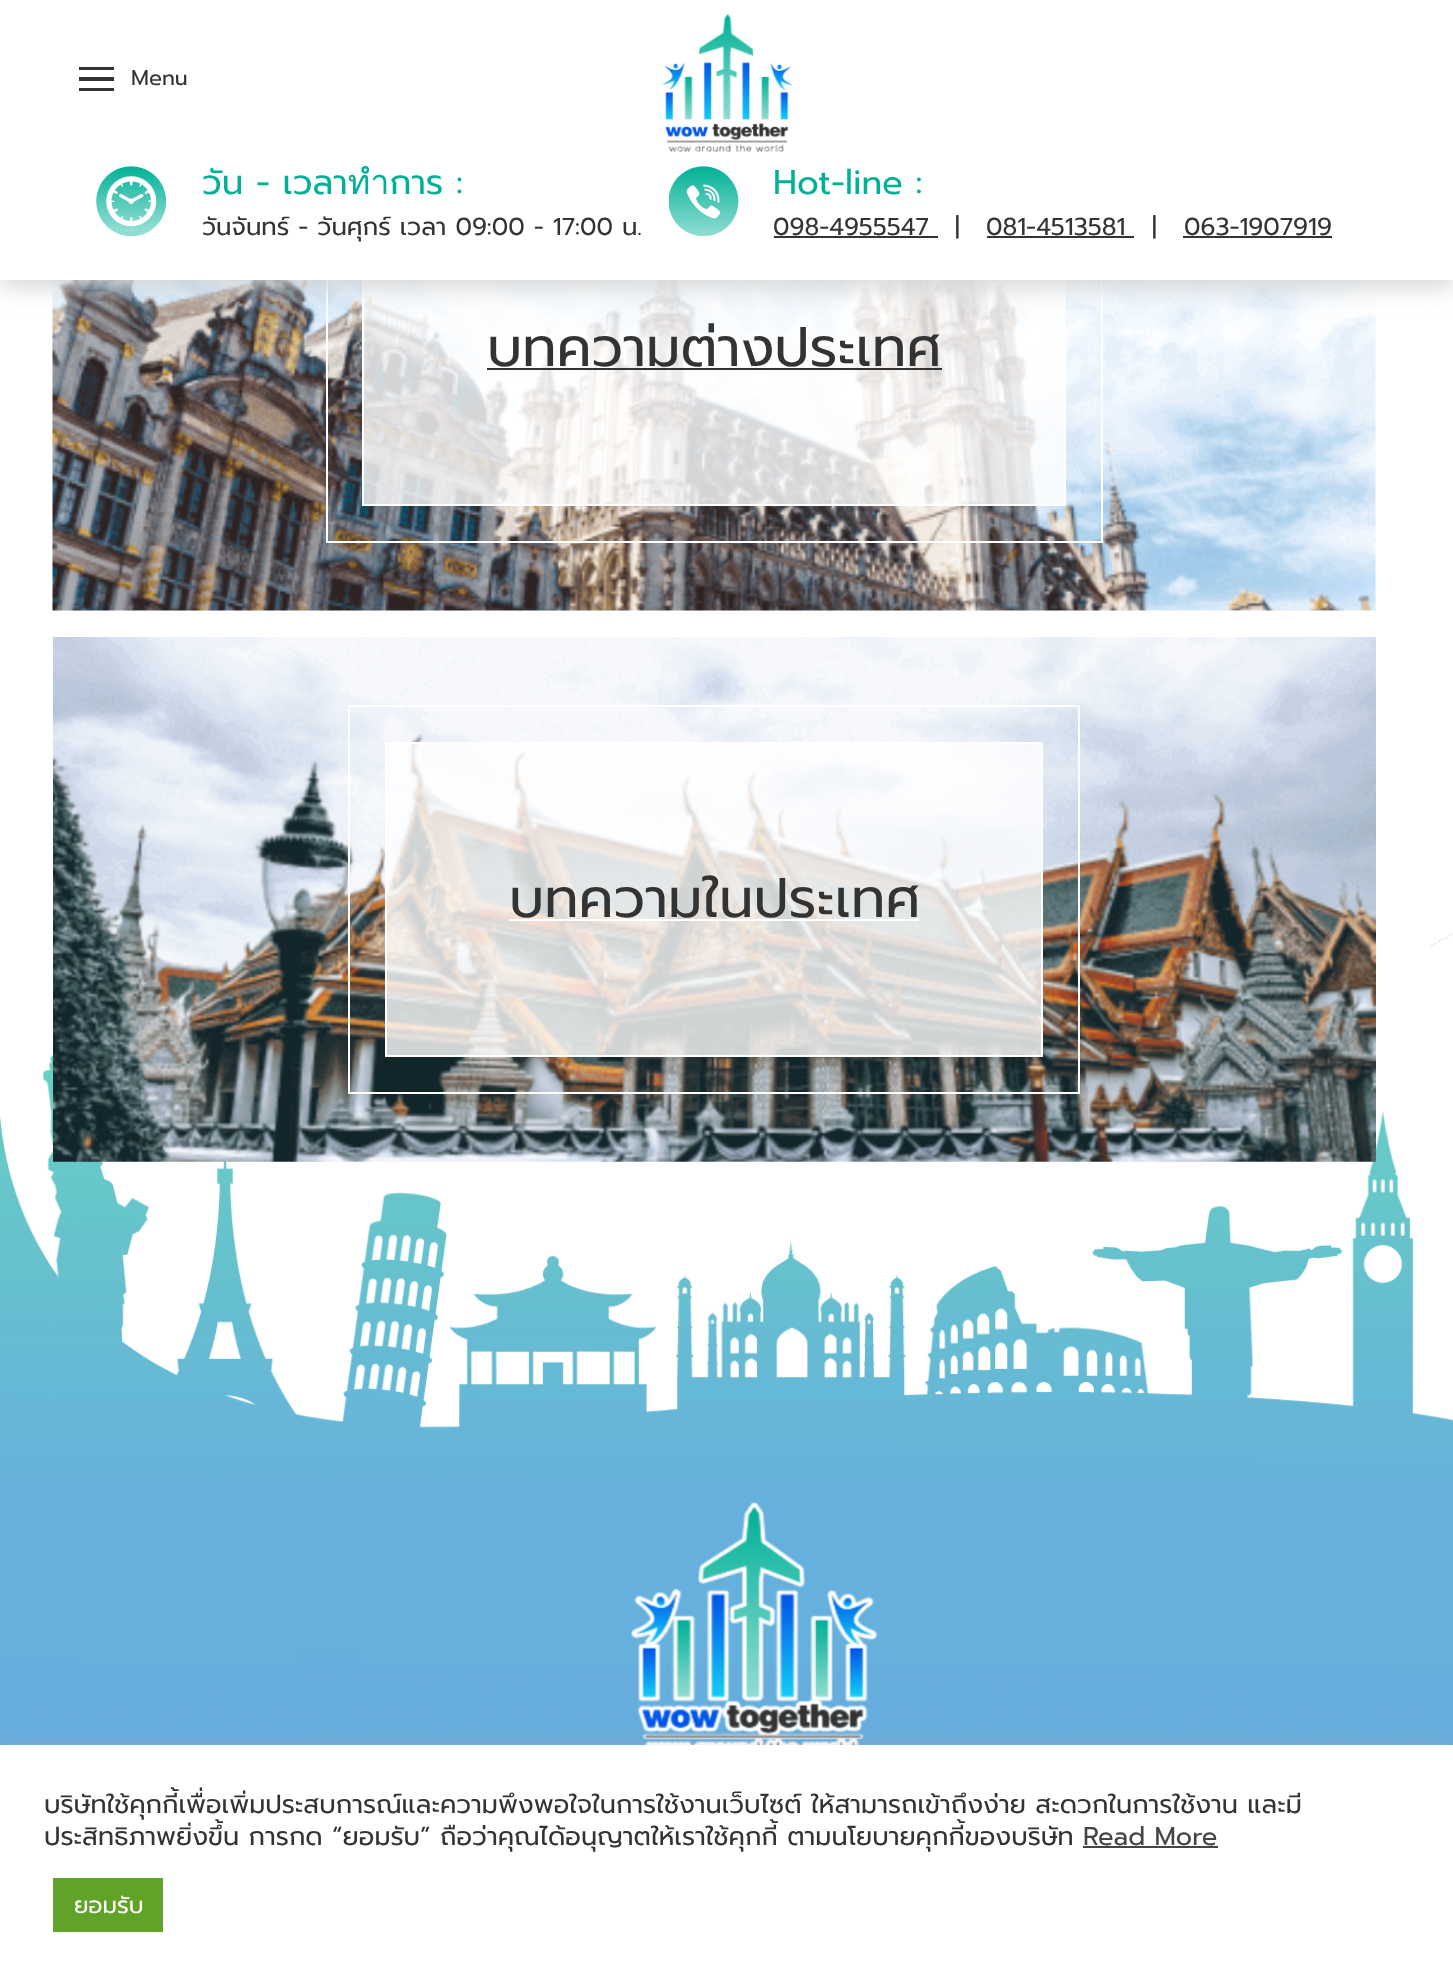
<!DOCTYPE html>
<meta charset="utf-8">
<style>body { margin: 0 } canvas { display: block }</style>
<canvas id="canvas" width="1453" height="1983"></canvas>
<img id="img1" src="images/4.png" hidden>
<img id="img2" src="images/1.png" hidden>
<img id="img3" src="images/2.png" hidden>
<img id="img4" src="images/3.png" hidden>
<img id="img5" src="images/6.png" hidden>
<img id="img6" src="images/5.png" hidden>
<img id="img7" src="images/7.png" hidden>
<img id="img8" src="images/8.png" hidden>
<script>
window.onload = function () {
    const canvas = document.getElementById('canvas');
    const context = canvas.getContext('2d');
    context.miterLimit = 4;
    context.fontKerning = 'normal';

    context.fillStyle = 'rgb(255, 255, 255)';
    context.fillRect(0, 0, 1453, 1983);
    context.drawImage(document.getElementById('img1'), 52, 280, 1324, 331);
    context.strokeStyle = 'rgb(255, 255, 255)';
    context.lineWidth = 2;
    context.strokeRect(327, 155, 775, 387);
    context.fillStyle = 'rgba(255, 255, 255, 0.8)';
    context.fillRect(364, 280, 700, 224);
    context.strokeRect(363, 192, 702, 313);
    context.fillStyle = 'rgb(213, 213, 213)';
    context.filter = 'blur(12px)';
    context.beginPath();
    context.rect(0, 7, 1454, 280);
    context.fill();
    context.filter = 'none';
    context.fillStyle = 'rgb(255, 255, 255)';
    context.fillRect(0, 0, 1453, 280);
    context.fillStyle = 'rgb(51, 51, 51)';
    context.fillRect(79, 67, 35, 3);
    context.fillRect(79, 77, 35, 4);
    context.fillRect(79, 88, 35, 3);
    context.drawImage(document.getElementById('img2'), 662, 14, 131, 138);
    context.drawImage(document.getElementById('img3'), 96, 166, 70, 70);
    context.drawImage(document.getElementById('img4'), 669, 166, 70, 70);
    context.fillRect(774, 236, 164, 2);
    context.fillRect(987, 236, 147, 2);
    context.fillRect(1183, 236, 149, 2);
    context.fillRect(487, 368, 455, 2);
    context.drawImage(document.getElementById('img5'), 0, 933, 1453, 570);
    context.drawImage(document.getElementById('img6'), 53, 637, 1323, 525);
    context.strokeRect(349, 706, 730, 387);
    context.fillStyle = 'rgba(255, 255, 255, 0.8)';
    context.beginPath();
    context.rect(386, 743, 656, 313);
    context.fill();
    context.stroke();
    context.fillStyle = 'rgb(255, 255, 255)';
    context.fillRect(509, 919, 410, 2);
    context.drawImage(document.getElementById('img7'), 0, 1503, 1453, 242);
    context.drawImage(document.getElementById('img8'), 631, 1502, 247, 243);
    context.fillStyle = 'rgba(172, 171, 171, 0.3)';
    context.filter = 'blur(9px)';
    context.beginPath();
    context.rect(0, 1743, 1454, 240);
    context.fill();
    context.filter = 'none';
    context.fillStyle = 'rgb(255, 255, 255)';
    context.fillRect(0, 1745, 1453, 238);
    context.fillStyle = 'rgb(68, 68, 68)';
    context.fillRect(1083, 1846, 135, 2);
    context.fillStyle = 'rgb(97, 162, 41)';
    context.fillRect(53, 1878, 110, 54);
    context.font = '21.5px Prompt';
    context.fillStyle = 'rgb(51, 51, 51)';
    context.fillText('Menu', 131, 85);
    context.font = '34.25px Prompt';
    context.fillStyle = 'rgb(1, 177, 151)';
    context.fillText('วัน - เวลาทำการ :', 202, 194);
    context.font = '24.5px Prompt';
    context.fillStyle = 'rgb(51, 51, 51)';
    context.fillText('วันจันทร์ - วันศุกร์ เวลา 09:00 - 17:00 น.', 202, 235);
    context.font = '34.25px Prompt';
    context.fillStyle = 'rgb(1, 177, 151)';
    context.fillText('Hot-line :', 773, 194);
    context.font = '24.5px Prompt';
    context.fillStyle = 'rgb(51, 51, 51)';
    context.fillText('098-4955547', 773, 235);
    context.fillText('|', 955, 235);
    context.fillText('081-4513581', 986, 235);
    context.fillText('|', 1152, 235);
    context.fillText('063-1907919', 1184, 235);
    context.font = '54.75px Prompt';
    context.fillText('บทความต่างประเทศ', 487, 366);
    context.fillText('บทความในประเทศ', 509, 917);
    context.font = '25.65px Prompt';
    context.fillText('บริษัทใช้คุกกี้เพื่อเพิ่มประสบการณ์และความพึงพอใจในการใช้งานเว็บไซต์ ให้สามารถเข้าถึงง่าย สะดวกในการใช้งาน และมี', 44, 1813);
    context.fillText('ประสิทธิภาพยิ่งขึ้น การกด “ยอมรับ” ถือว่าคุณได้อนุญาตให้เราใช้คุกกี้ ตามนโยบายคุกกี้ของบริษัท', 44, 1845);
    context.fillStyle = 'rgb(68, 68, 68)';
    context.fillText('Read More', 1083, 1845);
    context.font = '23px Prompt';
    context.fillStyle = 'rgb(255, 255, 255)';
    context.fillText('ยอมรับ', 74, 1913);
};
</script>
